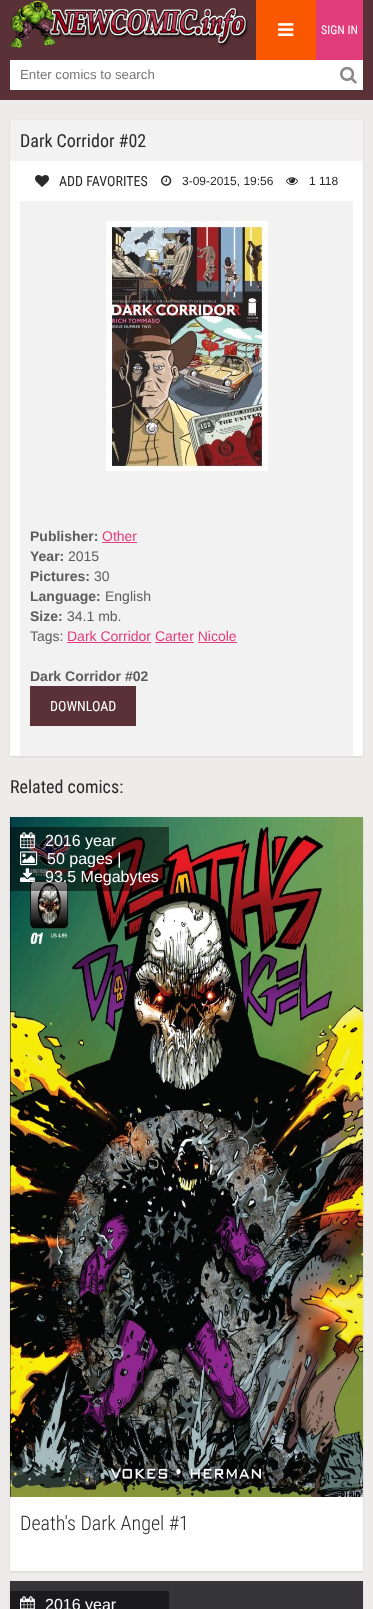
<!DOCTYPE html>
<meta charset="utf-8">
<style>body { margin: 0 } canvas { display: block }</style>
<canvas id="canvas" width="373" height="1609"></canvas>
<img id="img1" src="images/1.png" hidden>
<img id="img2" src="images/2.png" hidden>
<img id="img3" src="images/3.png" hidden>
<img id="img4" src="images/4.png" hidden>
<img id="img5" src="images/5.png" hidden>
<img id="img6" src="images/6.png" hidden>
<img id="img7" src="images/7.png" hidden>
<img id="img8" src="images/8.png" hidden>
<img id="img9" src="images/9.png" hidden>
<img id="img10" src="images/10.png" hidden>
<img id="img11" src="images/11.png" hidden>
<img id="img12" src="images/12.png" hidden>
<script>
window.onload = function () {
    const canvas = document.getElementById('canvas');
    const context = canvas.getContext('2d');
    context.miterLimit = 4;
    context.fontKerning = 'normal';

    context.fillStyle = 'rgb(238, 235, 235)';
    context.fillRect(0, 0, 373, 1609);
    context.fillStyle = 'rgb(89, 49, 54)';
    context.fillRect(0, 0, 373, 100);
    context.drawImage(document.getElementById('img1'), 10, 0, 239, 48);
    context.fillStyle = 'rgb(250, 88, 0)';
    context.fillRect(256, 0, 60, 60);
    context.drawImage(document.getElementById('img2'), 278, 23, 16, 13);
    context.fillStyle = 'rgb(225, 61, 122)';
    context.fillRect(316, 0, 47, 60);
    context.fillStyle = 'rgb(255, 255, 255)';
    context.fillRect(10, 60, 353, 30);
    context.drawImage(document.getElementById('img3'), 340, 66, 17, 18);
    context.fillStyle = 'rgba(0, 0, 0, 0.1)';
    context.filter = 'blur(1px)';
    context.beginPath();
    context.rect(10, 121, 353, 636);
    context.fill();
    context.filter = 'none';
    context.fillStyle = 'rgb(255, 255, 255)';
    context.fillRect(10, 161, 353, 595);
    context.fillStyle = 'rgb(242, 242, 242)';
    context.fillRect(10, 120, 353, 41);
    context.drawImage(document.getElementById('img4'), 35, 175, 14, 12);
    context.drawImage(document.getElementById('img5'), 161, 175, 11, 11);
    context.drawImage(document.getElementById('img6'), 286, 177, 12, 8);
    context.fillRect(20, 201, 333, 555);
    context.drawImage(document.getElementById('img7'), 106, 221, 162, 250);
    context.fillStyle = 'rgb(225, 61, 122)';
    context.fillRect(102, 542, 35, 1);
    context.fillRect(67, 642, 84, 1);
    context.fillRect(155, 642, 39, 1);
    context.fillRect(198, 642, 39, 1);
    context.fillStyle = 'rgb(89, 49, 54)';
    context.fillRect(30, 686, 106, 40);
    context.fillStyle = 'rgba(0, 0, 0, 0.1)';
    context.filter = 'blur(1px)';
    context.beginPath();
    context.rect(10, 818, 353, 754);
    context.fill();
    context.filter = 'none';
    context.fillStyle = 'rgb(255, 255, 255)';
    context.fillRect(10, 1497, 353, 74);
    context.drawImage(document.getElementById('img8'), 10, 817, 353, 680);
    context.fillStyle = 'rgba(0, 0, 0, 0.5)';
    context.fillRect(10, 827, 159, 64);
    context.drawImage(document.getElementById('img9'), 20, 832, 15, 17);
    context.drawImage(document.getElementById('img10'), 20, 851, 18, 15);
    context.drawImage(document.getElementById('img11'), 20, 868, 15, 14);
    context.fillStyle = 'rgba(0, 0, 0, 0.1)';
    context.filter = 'blur(1px)';
    context.beginPath();
    context.rect(10, 1582, 353, 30);
    context.fill();
    context.filter = 'none';
    context.fillStyle = 'rgb(54, 53, 58)';
    context.fillRect(10, 1581, 353, 28);
    context.fillStyle = 'rgb(27, 27, 29)';
    context.fillRect(10, 1591, 159, 18);
    context.drawImage(document.getElementById('img12'), 20, 1596, 15, 13);
    context.font = '12px Roboto Condensed';
    context.fillStyle = 'rgb(255, 255, 255)';
    context.fillText('SIGN IN', 321, 34);
    context.font = '13.25px Liberation Sans';
    context.fillStyle = 'rgb(117, 117, 117)';
    context.fillText('Enter comics to search', 20, 79);
    context.font = '18px Roboto Condensed';
    context.fillStyle = 'rgb(42, 42, 42)';
    context.fillText('Dark Corridor #02', 20, 147);
    context.font = '14px Roboto Condensed';
    context.fillText('ADD FAVORITES', 59, 186);
    context.font = '12px Liberation Sans';
    context.fillText('3-09-2015, 19:56', 182, 185);
    context.fillText('1 118', 309, 185);
    context.font = 'bold 14px Liberation Sans';
    context.fillStyle = 'rgb(92, 92, 92)';
    context.fillText('Publisher:', 30, 541);
    context.font = '14px Liberation Sans';
    context.fillStyle = 'rgb(225, 61, 122)';
    context.fillText('Other', 102, 541);
    context.font = 'bold 14px Liberation Sans';
    context.fillStyle = 'rgb(92, 92, 92)';
    context.fillText('Year:', 30, 561);
    context.font = '14px Liberation Sans';
    context.fillText('2015', 68, 561);
    context.font = 'bold 14px Liberation Sans';
    context.fillText('Pictures:', 30, 581);
    context.font = '14px Liberation Sans';
    context.fillText('30', 94, 581);
    context.font = 'bold 14px Liberation Sans';
    context.fillText('Language:', 30, 601);
    context.font = '14px Liberation Sans';
    context.fillText('English', 105, 601);
    context.font = 'bold 14px Liberation Sans';
    context.fillText('Size:', 30, 621);
    context.font = '14px Liberation Sans';
    context.fillText('34.1 mb.', 67, 621);
    context.fillText('Tags:', 30, 641);
    context.fillStyle = 'rgb(225, 61, 122)';
    context.fillText('Dark Corridor Carter Nicole', 67, 641);
    context.font = 'bold 14px Liberation Sans';
    context.fillStyle = 'rgb(92, 92, 92)';
    context.fillText('Dark Corridor #02', 30, 681);
    context.font = '14px Roboto Condensed';
    context.fillStyle = 'rgb(255, 255, 255)';
    context.fillText('DOWNLOAD', 50, 711);
    context.font = '18px Roboto Condensed';
    context.fillStyle = 'rgb(42, 42, 42)';
    context.fillText('Related comics:', 10, 793);
    context.font = '16px Liberation Sans';
    context.fillStyle = 'rgb(255, 255, 255)';
    context.fillText('2016 year', 45, 846);
    context.fillText('50 pages |', 47, 864);
    context.fillText('93.5 Megabytes', 45, 882);
    context.font = '300 20px Roboto Condensed';
    context.fillStyle = 'rgb(42, 42, 42)';
    context.fillText('Death\'s Dark Angel #1', 20, 1530);
    context.font = '16px Liberation Sans';
    context.fillStyle = 'rgb(255, 255, 255)';
    context.fillText('2016 year', 45, 1610);
};
</script>
